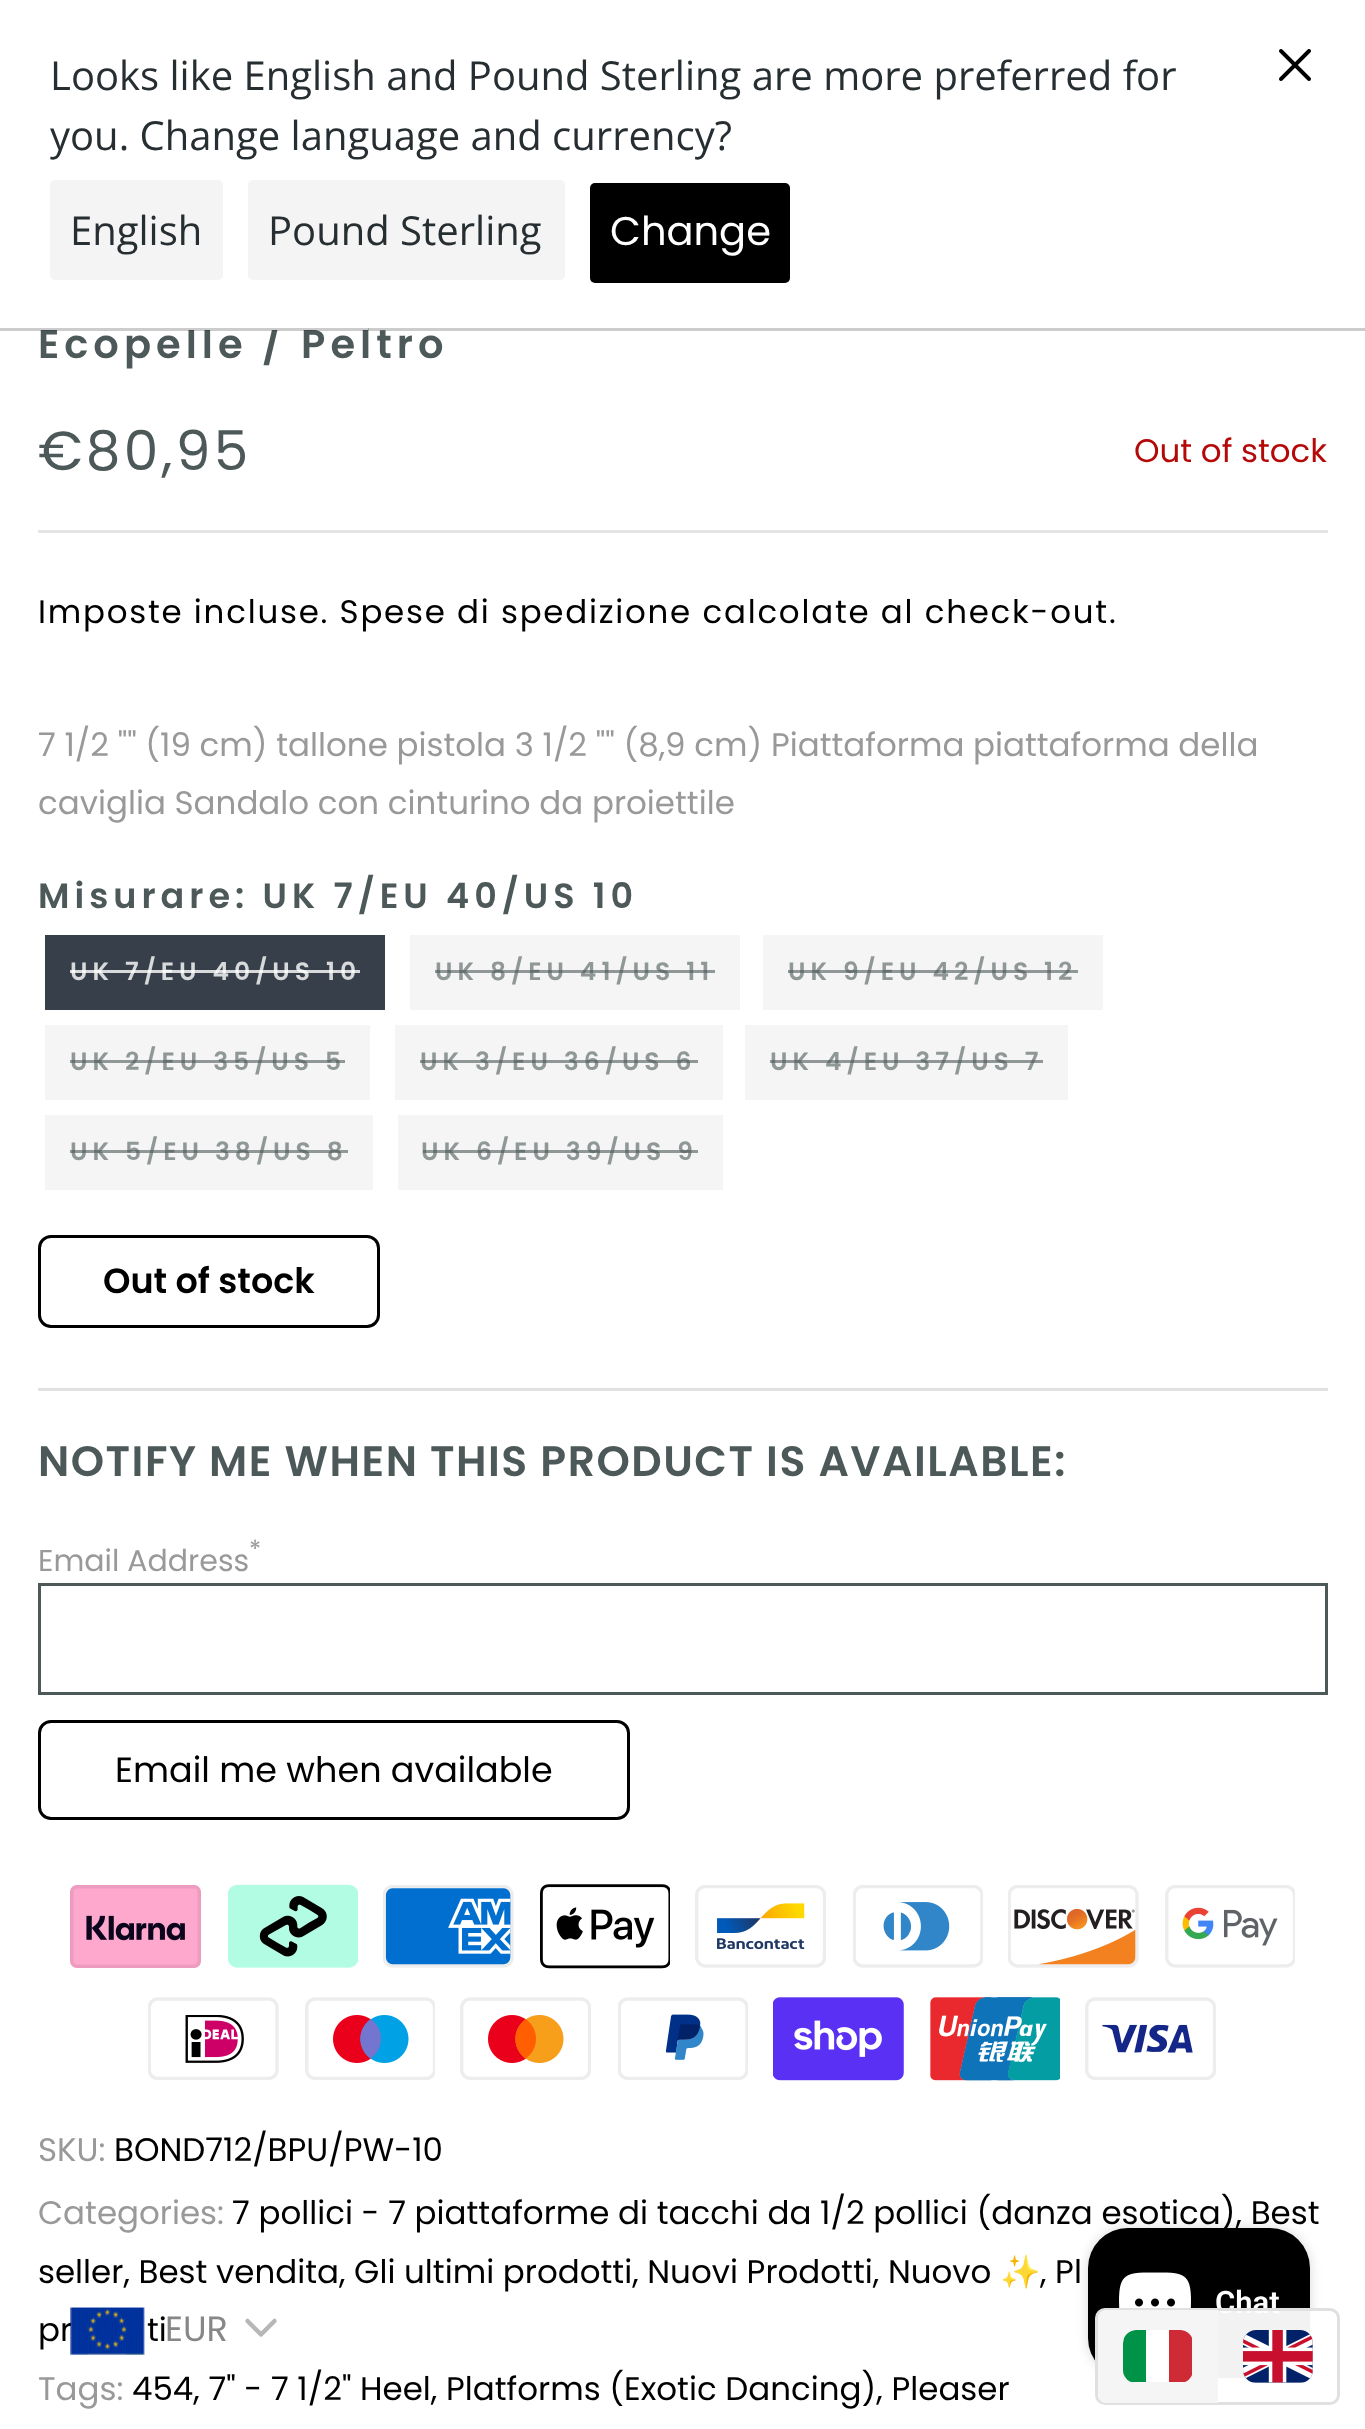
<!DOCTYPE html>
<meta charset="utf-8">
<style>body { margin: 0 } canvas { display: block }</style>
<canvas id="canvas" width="1365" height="2429"></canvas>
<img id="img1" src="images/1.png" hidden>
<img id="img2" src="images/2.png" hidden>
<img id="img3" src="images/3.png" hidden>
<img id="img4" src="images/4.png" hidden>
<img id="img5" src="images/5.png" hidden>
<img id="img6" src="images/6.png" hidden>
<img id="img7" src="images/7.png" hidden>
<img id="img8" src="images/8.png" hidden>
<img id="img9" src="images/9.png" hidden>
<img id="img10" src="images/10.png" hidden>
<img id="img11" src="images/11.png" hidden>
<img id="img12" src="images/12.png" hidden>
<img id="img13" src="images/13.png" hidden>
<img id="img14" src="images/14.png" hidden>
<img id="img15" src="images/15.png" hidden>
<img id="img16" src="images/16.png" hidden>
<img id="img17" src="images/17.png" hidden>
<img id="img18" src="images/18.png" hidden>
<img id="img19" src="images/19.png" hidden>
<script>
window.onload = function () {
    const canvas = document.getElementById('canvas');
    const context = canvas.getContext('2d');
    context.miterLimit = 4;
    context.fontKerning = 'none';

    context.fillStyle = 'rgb(255, 255, 255)';
    context.fillRect(0, 0, 1365, 2429);
    context.fillStyle = 'rgb(244, 244, 244)';
    context.beginPath();
    context.roundRect(50, 180, 173, 100, 5);
    context.fill();
    context.beginPath();
    context.roundRect(248, 180, 317, 100, 5);
    context.fill();
    context.fillStyle = 'rgb(0, 0, 0)';
    context.beginPath();
    context.roundRect(590, 183, 200, 100, 5);
    context.fill();
    context.drawImage(document.getElementById('img1'), 1279, 49, 32, 32);
    context.fillStyle = 'rgb(229, 229, 229)';
    context.fillRect(38, 530, 1290, 3);
    context.fillStyle = 'rgb(55, 64, 74)';
    context.fillRect(45, 935, 340, 75);
    context.fillStyle = 'rgb(245, 245, 245)';
    context.fillRect(410, 935, 330, 75);
    context.fillRect(763, 935, 340, 75);
    context.fillRect(45, 1025, 325, 75);
    context.fillRect(395, 1025, 328, 75);
    context.fillRect(745, 1025, 323, 75);
    context.fillRect(45, 1115, 328, 75);
    context.fillRect(398, 1115, 325, 75);
    context.fillStyle = 'rgb(225, 225, 225)';
    context.fillRect(38, 1388, 1290, 3);
    context.beginPath();
    context.roundRect(39.5, 1236.5, 339, 90, 11.5);
    context.strokeStyle = 'rgb(0, 0, 0)';
    context.lineWidth = 3;
    context.stroke();
    context.strokeStyle = 'rgb(77, 89, 89)';
    context.strokeRect(39.5, 1584.5, 1287, 109);
    context.beginPath();
    context.roundRect(39.5, 1721.5, 589, 97, 11.5);
    context.strokeStyle = 'rgb(0, 0, 0)';
    context.stroke();
    context.drawImage(document.getElementById('img2'), 70, 1885, 131, 83);
    context.drawImage(document.getElementById('img3'), 228, 1884, 130, 84);
    context.drawImage(document.getElementById('img4'), 383, 1885, 131, 83);
    context.drawImage(document.getElementById('img5'), 540, 1884, 130, 85);
    context.drawImage(document.getElementById('img6'), 695, 1885, 131, 83);
    context.drawImage(document.getElementById('img7'), 853, 1885, 130, 83);
    context.drawImage(document.getElementById('img8'), 1008, 1885, 131, 83);
    context.drawImage(document.getElementById('img9'), 1165, 1885, 130, 83);
    context.drawImage(document.getElementById('img10'), 148, 1997, 131, 83);
    context.drawImage(document.getElementById('img11'), 305, 1997, 130, 83);
    context.drawImage(document.getElementById('img12'), 460, 1997, 131, 83);
    context.drawImage(document.getElementById('img13'), 618, 1997, 130, 83);
    context.drawImage(document.getElementById('img14'), 773, 1997, 131, 84);
    context.drawImage(document.getElementById('img15'), 930, 1997, 130, 84);
    context.drawImage(document.getElementById('img16'), 1085, 1997, 131, 83);
    context.fillStyle = 'rgba(0, 0, 0, 0.15)';
    context.filter = 'blur(6px)';
    context.beginPath();
    context.roundRect(1088, 2228, 222, 150, 40);
    context.fill();
    context.filter = 'none';
    context.fillStyle = 'rgb(0, 0, 0)';
    context.beginPath();
    context.roundRect(1088, 2228, 222, 150, 40);
    context.fill();
    context.drawImage(document.getElementById('img17'), 1119, 2272, 72, 36);
    context.beginPath();
    context.moveTo(247.5, 2321);
    context.lineTo(261, 2334.5);
    context.lineTo(274.5, 2321);
    context.strokeStyle = 'rgb(183, 183, 183)';
    context.lineWidth = 4.5;
    context.lineCap = 'round';
    context.lineJoin = 'round';
    context.stroke();
    context.font = '40px Open Sans';
    context.fillStyle = 'rgb(39, 46, 49)';
    context.fillText('Looks like English and Pound Sterling are more preferred for', 50, 90);
    context.fillText('you. Change language and currency?', 50, 150);
    context.fillText('English', 70, 245);
    context.fillText('Pound Sterling', 268, 245);
    context.font = '40px Poppins';
    context.fillStyle = 'rgb(255, 255, 255)';
    context.fillText('Change', 610, 245);
    context.letterSpacing = '5px';
    context.font = '600 40px Poppins';
    context.fillStyle = 'rgb(77, 89, 89)';
    context.fillText('Ecopelle / Peltro', 38, 358);
    context.fillStyle = 'rgb(255, 255, 255)';
    context.fillRect(187, 320, 181, 10);
    context.fillStyle = 'rgba(0, 0, 0, 0.2)';
    context.fillRect(0, 328, 1365, 3);
    context.letterSpacing = '3.25px';
    context.font = '55px Poppins';
    context.fillStyle = 'rgb(77, 89, 89)';
    context.fillText('€80,95', 38, 470);
    context.letterSpacing = '0px';
    context.font = '32.5px Poppins';
    context.fillStyle = 'rgb(181, 8, 8)';
    context.fillText('Out of stock', 1134, 462);
    context.letterSpacing = '1.75px';
    context.fillStyle = 'rgb(0, 0, 0)';
    context.fillText('Imposte incluse. Spese di spedizione calcolate al check-out.', 38, 623);
    context.letterSpacing = '0px';
    context.fillStyle = 'rgb(153, 153, 153)';
    context.fillText('7 1/2 "" (19 cm) tallone pistola 3 1/2 "" (8,9 cm) Piattaforma piattaforma della', 38, 756);
    context.fillText('caviglia Sandalo con cinturino da proiettile', 38, 814);
    context.letterSpacing = '5px';
    context.font = '600 35px Poppins';
    context.fillStyle = 'rgb(77, 89, 89)';
    context.fillText('Misurare: UK 7/EU 40/US 10', 38, 908);
    context.font = '600 25px Poppins';
    context.fillStyle = 'rgb(215, 217, 219)';
    context.fillText('UK 7/EU 40/US 10', 70, 980);
    context.fillStyle = 'rgba(255, 255, 255, 0.8)';
    context.fillRect(70, 970, 290, 3);
    context.fillStyle = 'rgb(144, 151, 151)';
    context.fillText('UK 8/EU 41/US 11', 435, 980);
    context.fillStyle = 'rgba(77, 89, 89, 0.6)';
    context.fillRect(435, 970, 280, 3);
    context.fillStyle = 'rgb(144, 151, 151)';
    context.fillText('UK 9/EU 42/US 12', 788, 980);
    context.fillStyle = 'rgba(77, 89, 89, 0.6)';
    context.fillRect(788, 970, 290, 3);
    context.fillStyle = 'rgb(144, 151, 151)';
    context.fillText('UK 2/EU 35/US 5', 70, 1070);
    context.fillStyle = 'rgba(77, 89, 89, 0.6)';
    context.fillRect(70, 1060, 275, 3);
    context.fillStyle = 'rgb(144, 151, 151)';
    context.fillText('UK 3/EU 36/US 6', 420, 1070);
    context.fillStyle = 'rgba(77, 89, 89, 0.6)';
    context.fillRect(420, 1060, 278, 3);
    context.fillStyle = 'rgb(144, 151, 151)';
    context.fillText('UK 4/EU 37/US 7', 770, 1070);
    context.fillStyle = 'rgba(77, 89, 89, 0.6)';
    context.fillRect(770, 1060, 273, 3);
    context.fillStyle = 'rgb(144, 151, 151)';
    context.fillText('UK 5/EU 38/US 8', 70, 1160);
    context.fillStyle = 'rgba(77, 89, 89, 0.6)';
    context.fillRect(70, 1150, 278, 3);
    context.fillStyle = 'rgb(144, 151, 151)';
    context.fillText('UK 6/EU 39/US 9', 421, 1160);
    context.fillStyle = 'rgba(77, 89, 89, 0.6)';
    context.fillRect(423, 1150, 275, 3);
    context.letterSpacing = '0px';
    context.font = '600 35px Poppins';
    context.fillStyle = 'rgb(0, 0, 0)';
    context.fillText('Out of stock', 103, 1293);
    context.letterSpacing = '1.5px';
    context.font = '600 42.5px Poppins';
    context.fillStyle = 'rgb(77, 89, 89)';
    context.fillText('NOTIFY ME WHEN THIS PRODUCT IS AVAILABLE:', 38, 1476);
    context.letterSpacing = '0px';
    context.font = '25px Poppins';
    context.fillStyle = 'rgb(153, 153, 153)';
    context.fillText('*', 249, 1558);
    context.font = '30px Poppins';
    context.fillText('Email Address', 38, 1571);
    context.font = '35px Poppins';
    context.fillStyle = 'rgb(0, 0, 0)';
    context.fillText('Email me when available', 115, 1782);
    context.font = '32.5px Poppins';
    context.fillStyle = 'rgb(153, 153, 153)';
    context.fillText('SKU:', 38, 2161);
    context.fillStyle = 'rgb(0, 0, 0)';
    context.fillText('BOND712/BPU/PW-10', 114, 2161);
    context.fillStyle = 'rgb(153, 153, 153)';
    context.fillText('Categories:', 38, 2224);
    context.fillStyle = 'rgb(0, 0, 0)';
    context.fillText('7 pollici - 7 piattaforme di tacchi da 1/2 pollici (danza esotica), Best', 232, 2224);
    context.fillText('seller, Best vendita, Gli ultimi prodotti, Nuovi Prodotti, Nuovo', 38, 2283);
    context.font = '32.5px Noto Color Emoji';
    context.fillText('✨', 1000, 2283);
    context.font = '32.5px Poppins';
    context.fillText(', Pl', 1040, 2283);
    context.fillText('pr', 38, 2341);
    context.fillText('ti', 147, 2341);
    context.fillStyle = 'rgb(153, 153, 153)';
    context.fillText('Tags:', 38, 2400);
    context.fillStyle = 'rgb(0, 0, 0)';
    context.fillText('454, 7" - 7 1/2" Heel, Platforms (Exotic Dancing), Pleaser', 132, 2400);
    context.font = '600 31px Roboto';
    context.fillStyle = 'rgb(255, 255, 255)';
    context.fillText('Chat', 1215, 2313);
    context.drawImage(document.getElementById('img18'), 70, 2307, 75, 48);
    context.font = '35px Poppins';
    context.fillStyle = 'rgb(135, 135, 135)';
    context.fillText('EUR', 165, 2341);
    context.fillStyle = 'rgba(255, 255, 255, 0.95)';
    context.beginPath();
    context.roundRect(1096.5, 2309.5, 242, 94, 8.5);
    context.fill();
    context.strokeStyle = 'rgb(224, 224, 224)';
    context.lineWidth = 3;
    context.lineJoin = 'miter';
    context.stroke();
    context.fillStyle = 'rgb(245, 245, 245)';
    context.beginPath();
    context.roundRect(1098, 2310, 120, 93, [8, 0, 0, 8]);
    context.fill();
    context.save();
    context.beginPath();
    context.roundRect(1123, 2330, 70, 53, 13);
    context.clip();
    context.fillStyle = 'rgb(255, 255, 255)';
    context.beginPath();
    context.roundRect(1123, 2330, 69, 52, [13, 0, 0, 0]);
    context.fill();
    context.fillStyle = 'rgb(0, 146, 70)';
    context.beginPath();
    context.roundRect(1123, 2330, 23, 52, [13, 0, 0, 0]);
    context.fill();
    context.fillStyle = 'rgb(206, 43, 55)';
    context.fillRect(1169, 2330, 23, 52);
    context.restore();
    context.drawImage(document.getElementById('img19'), 1243, 2330, 70, 53);
};
</script>
